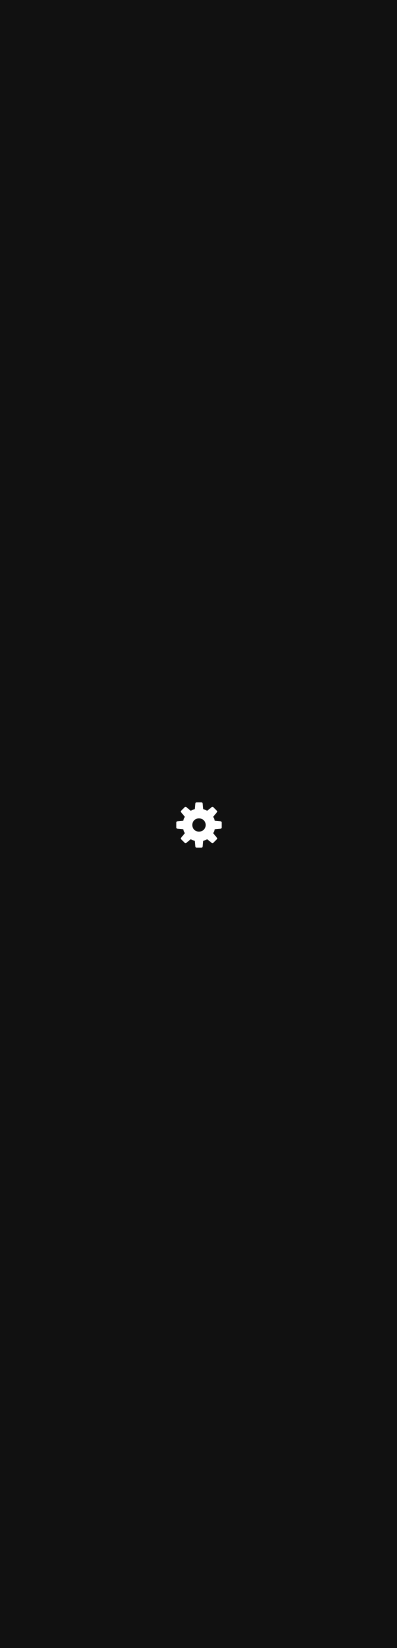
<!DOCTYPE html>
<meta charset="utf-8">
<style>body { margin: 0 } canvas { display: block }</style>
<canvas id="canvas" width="397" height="1648"></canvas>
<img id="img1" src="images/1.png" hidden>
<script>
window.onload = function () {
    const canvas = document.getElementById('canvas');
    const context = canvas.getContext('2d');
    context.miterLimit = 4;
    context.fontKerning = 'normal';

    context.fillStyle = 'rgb(17, 17, 17)';
    context.fillRect(0, 0, 397, 1648);
    context.drawImage(document.getElementById('img1'), 176, 802, 46, 46);
};
</script>
